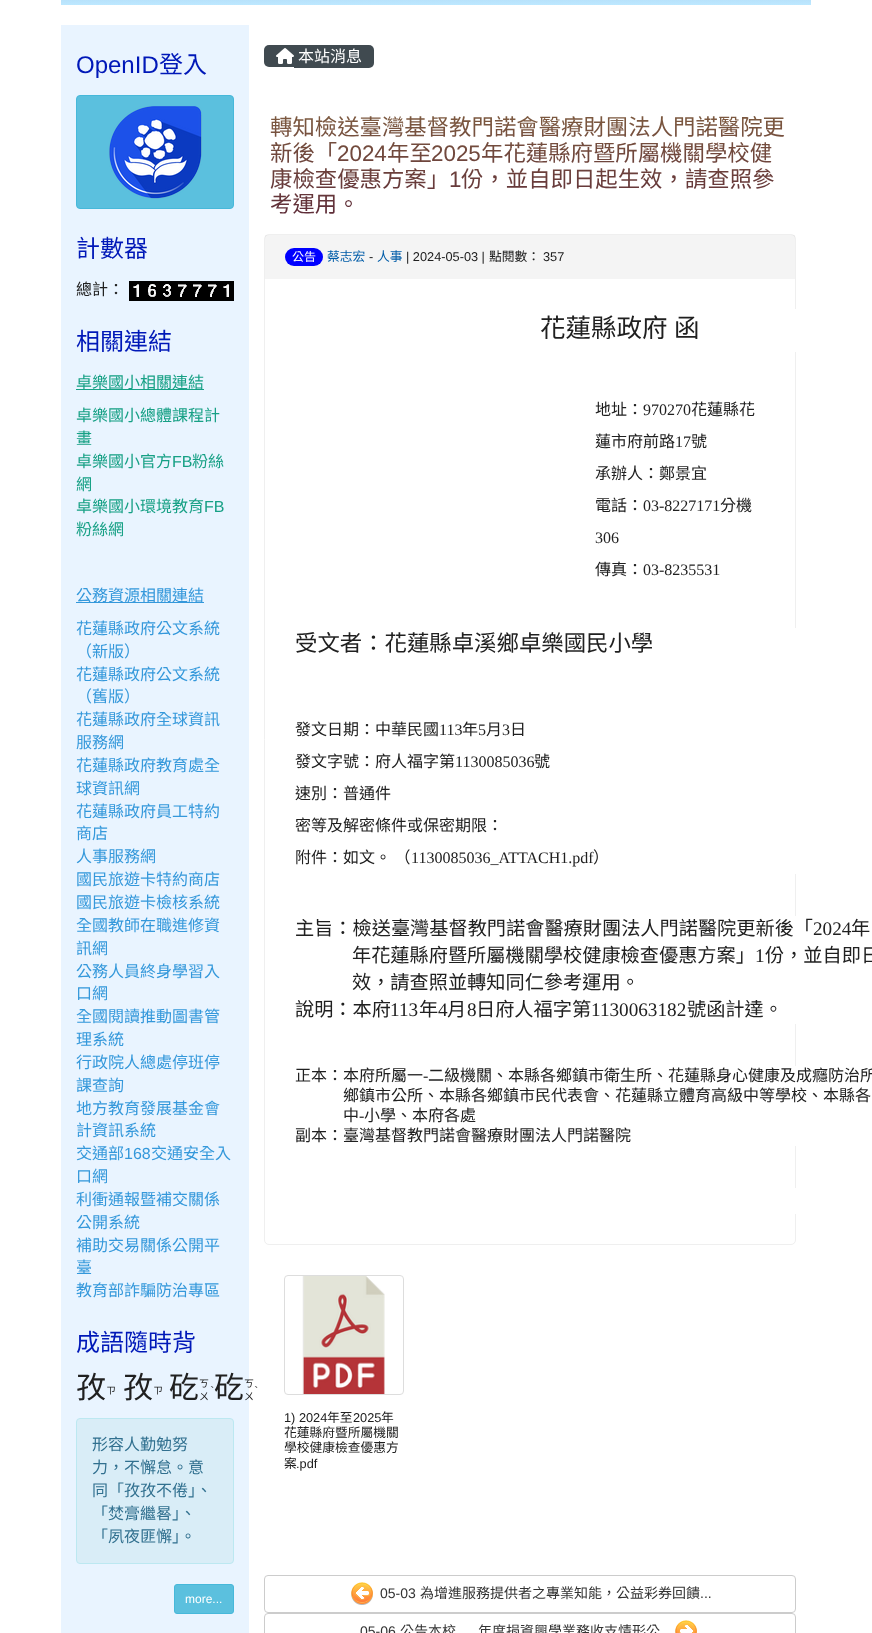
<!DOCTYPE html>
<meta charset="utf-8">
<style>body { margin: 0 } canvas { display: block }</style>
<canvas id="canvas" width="872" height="1633"></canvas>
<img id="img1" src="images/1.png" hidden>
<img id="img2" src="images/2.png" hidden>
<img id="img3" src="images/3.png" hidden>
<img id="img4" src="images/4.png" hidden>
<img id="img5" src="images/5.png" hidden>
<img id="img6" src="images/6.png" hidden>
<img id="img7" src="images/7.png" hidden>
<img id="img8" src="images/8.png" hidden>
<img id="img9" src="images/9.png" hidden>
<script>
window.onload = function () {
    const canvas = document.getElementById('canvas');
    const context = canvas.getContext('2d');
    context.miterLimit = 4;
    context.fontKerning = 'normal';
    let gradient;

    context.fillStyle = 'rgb(255, 255, 255)';
    context.fillRect(0, 0, 872, 1633);
    gradient = context.createLinearGradient(436, -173, 436, 5);
    gradient.addColorStop(0, 'rgb(0, 6, 117)');
    gradient.addColorStop(1, 'rgb(189, 232, 255)');
    context.fillStyle = gradient;
    context.fillRect(61, 0, 750, 5);
    context.fillStyle = 'rgb(233, 244, 255)';
    context.fillRect(61, 25, 188, 1608);
    context.fillStyle = 'rgb(91, 192, 222)';
    context.beginPath();
    context.roundRect(76.5, 95.5, 157, 113, 3.5);
    context.fill();
    context.strokeStyle = 'rgb(70, 184, 218)';
    context.stroke();
    context.drawImage(document.getElementById('img1'), 109, 106, 93, 93);
    context.drawImage(document.getElementById('img2'), 129, 281, 15, 20);
    context.drawImage(document.getElementById('img3'), 144, 281, 15, 20);
    context.drawImage(document.getElementById('img4'), 159, 281, 15, 20);
    context.drawImage(document.getElementById('img5'), 174, 281, 15, 20);
    context.drawImage(document.getElementById('img5'), 189, 281, 15, 20);
    context.drawImage(document.getElementById('img5'), 204, 281, 15, 20);
    context.drawImage(document.getElementById('img2'), 219, 281, 15, 20);
    context.fillStyle = 'rgb(22, 160, 133)';
    context.fillRect(76, 389, 128, 1);
    context.fillStyle = 'rgb(52, 152, 219)';
    context.fillRect(76, 602, 128, 1);
    context.fillStyle = 'rgb(217, 237, 247)';
    context.beginPath();
    context.roundRect(76.5, 1418.5, 157, 145, 3.5);
    context.fill();
    context.strokeStyle = 'rgb(188, 232, 241)';
    context.stroke();
    context.fillStyle = 'rgb(91, 192, 222)';
    context.beginPath();
    context.roundRect(174.5, 1584.5, 59, 29, 2.5);
    context.fill();
    context.strokeStyle = 'rgb(70, 184, 218)';
    context.stroke();
    context.fillStyle = 'rgb(64, 74, 80)';
    context.beginPath();
    context.roundRect(264, 45, 30, 22, [5, 0, 0, 5]);
    context.fill();
    context.beginPath();
    context.roundRect(294, 45, 80, 23, [0, 5, 5, 0]);
    context.fill();
    context.drawImage(document.getElementById('img6'), 276, 48, 18, 16);
    context.beginPath();
    context.roundRect(264.5, 234.5, 531, 1010, 4.5);
    context.strokeStyle = 'rgb(239, 239, 239)';
    context.stroke();
    context.fillStyle = 'rgba(200, 200, 200, 0.2)';
    context.fillRect(265, 235, 530, 44);
    context.fillStyle = 'rgb(0, 0, 255)';
    context.beginPath();
    context.roundRect(285, 248, 38, 18, 9);
    context.fill();
    context.fillStyle = 'rgb(255, 255, 255)';
    context.fillRect(795, 309, 1, 43);
    context.fillRect(795, 628, 1, 246);
    context.fillRect(795, 916, 1, 108);
    context.fillRect(795, 1066, 1, 80);
    context.fillRect(795, 1188, 1, 26);
    context.drawImage(document.getElementById('img7'), 302, 1276, 83, 118);
    context.beginPath();
    context.roundRect(284.5, 1275.5, 119, 119, 3.5);
    context.strokeStyle = 'rgb(221, 221, 221)';
    context.stroke();
    context.beginPath();
    context.roundRect(264.5, 1575.5, 531, 37, 3.5);
    context.strokeStyle = 'rgb(204, 204, 204)';
    context.stroke();
    context.drawImage(document.getElementById('img8'), 351, 1582, 22, 23);
    context.beginPath();
    context.roundRect(264.5, 1613.5, 531, 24, 3.5);
    context.stroke();
    context.drawImage(document.getElementById('img9'), 675, 1620, 22, 13);
    context.font = '24px Liberation Sans';
    context.fillStyle = 'rgb(0, 24, 184)';
    context.fillText('OpenID', 76, 73);
    context.font = '24px Noto Sans CJK TC';
    context.fillText('登入', 159, 73);
    context.fillText('計數器', 76, 257);
    context.font = '16px Noto Sans CJK TC';
    context.fillStyle = 'rgb(32, 32, 32)';
    context.fillText('總計：', 76, 295);
    context.font = '24px Noto Sans CJK TC';
    context.fillStyle = 'rgb(0, 24, 184)';
    context.fillText('相關連結', 76, 350);
    context.font = '16px Noto Sans CJK TC';
    context.fillStyle = 'rgb(22, 160, 133)';
    context.fillText('卓樂國小相關連結', 76, 388);
    context.fillText('卓樂國小總體課程計', 76, 421);
    context.fillText('畫', 76, 444);
    context.fillText('卓樂國小官方', 76, 467);
    context.font = '16px Liberation Sans';
    context.fillText('FB', 172, 467);
    context.font = '16px Noto Sans CJK TC';
    context.fillText('粉絲', 192, 467);
    context.fillText('網', 76, 490);
    context.fillText('卓樂國小環境教育', 76, 512);
    context.font = '16px Liberation Sans';
    context.fillText('FB', 204, 512);
    context.font = '16px Noto Sans CJK TC';
    context.fillText('粉絲網', 76, 535);
    context.fillStyle = 'rgb(52, 152, 219)';
    context.fillText('公務資源相關連結', 76, 601);
    context.fillText('花蓮縣政府公文系統', 76, 634);
    context.fillText('（新版）', 76, 657);
    context.fillText('花蓮縣政府公文系統', 76, 680);
    context.fillText('（舊版）', 76, 702);
    context.fillText('花蓮縣政府全球資訊', 76, 725);
    context.fillText('服務網', 76, 748);
    context.fillText('花蓮縣政府教育處全', 76, 771);
    context.fillText('球資訊網', 76, 794);
    context.fillText('花蓮縣政府員工特約', 76, 817);
    context.fillText('商店', 76, 839);
    context.fillText('人事服務網', 76, 862);
    context.fillText('國民旅遊卡特約商店', 76, 885);
    context.fillText('國民旅遊卡檢核系統', 76, 908);
    context.fillText('全國教師在職進修資', 76, 931);
    context.fillText('訊網', 76, 954);
    context.fillText('公務人員終身學習入', 76, 977);
    context.fillText('口網', 76, 999);
    context.fillText('全國閱讀推動圖書管', 76, 1022);
    context.fillText('理系統', 76, 1045);
    context.fillText('行政院人總處停班停', 76, 1068);
    context.fillText('課查詢', 76, 1091);
    context.fillText('地方教育發展基金會', 76, 1114);
    context.fillText('計資訊系統', 76, 1136);
    context.fillText('交通部', 76, 1159);
    context.font = '16px Liberation Sans';
    context.fillText('168', 124, 1159);
    context.font = '16px Noto Sans CJK TC';
    context.fillText('交通安全入', 151, 1159);
    context.fillText('口網', 76, 1182);
    context.fillText('利衝通報暨補交關係', 76, 1205);
    context.fillText('公開系統', 76, 1228);
    context.fillText('補助交易關係公開平', 76, 1251);
    context.fillText('臺', 76, 1273);
    context.fillText('教育部詐騙防治專區', 76, 1296);
    context.font = '24px Noto Sans CJK TC';
    context.fillStyle = 'rgb(0, 24, 184)';
    context.fillText('成語隨時背', 76, 1351);
    context.font = '30px Noto Sans CJK TC';
    context.fillStyle = 'rgb(32, 32, 32)';
    context.fillText('孜', 76, 1398);
    context.font = '10px Noto Sans CJK TC';
    context.fillText('ㄗ', 106, 1394);
    context.font = '30px Noto Sans CJK TC';
    context.fillText('孜', 123, 1398);
    context.font = '10px Noto Sans CJK TC';
    context.fillText('ㄗ', 153, 1394);
    context.font = '30px Noto Sans CJK TC';
    context.fillText('矻', 169, 1398);
    context.font = '10px Noto Sans CJK TC';
    context.fillText('ㄎ', 199, 1387);
    context.fillText('ㄨ', 199, 1400);
    context.font = '12.75px Liberation Serif';
    context.fillText('ˋ', 210, 1395);
    context.font = '30px Noto Sans CJK TC';
    context.fillText('矻', 214, 1398);
    context.font = '10px Noto Sans CJK TC';
    context.fillText('ㄎ', 244, 1387);
    context.fillText('ㄨ', 244, 1400);
    context.font = '12.75px Liberation Serif';
    context.fillText('ˋ', 254, 1395);
    context.font = '16px Noto Sans CJK TC';
    context.fillStyle = 'rgb(49, 112, 143)';
    context.fillText('形容人勤勉努', 92, 1450);
    context.fillText('力，不懈怠。意', 92, 1473);
    context.fillText('同「孜孜不倦」、', 92, 1496);
    context.fillText('「焚膏繼晷」、', 92, 1519);
    context.fillText('「夙夜匪懈」。', 92, 1542);
    context.font = '12px Liberation Sans';
    context.fillStyle = 'rgb(255, 255, 255)';
    context.fillText('more...', 185, 1603);
    context.font = '16px Noto Sans CJK TC';
    context.fillText('本站消息', 298, 62);
    context.font = '22.4px Noto Sans CJK TC';
    gradient = context.createLinearGradient(530, 109, 530, 224);
    gradient.addColorStop(0, 'rgb(126, 92, 64)');
    gradient.addColorStop(1, 'rgb(92, 41, 56)');
    context.fillStyle = gradient;
    context.fillText('轉知檢送臺灣基督教門諾會醫療財團法人門諾醫院更', 270, 135);
    context.fillText('新後「', 270, 161);
    context.font = '22.4px Liberation Sans';
    context.fillText('2024', 337, 161);
    context.font = '22.4px Noto Sans CJK TC';
    context.fillText('年至', 387, 161);
    context.font = '22.4px Liberation Sans';
    context.fillText('2025', 431, 161);
    context.font = '22.4px Noto Sans CJK TC';
    context.fillText('年花蓮縣府暨所屬機關學校健', 481, 161);
    context.fillText('康檢查優惠方案」', 270, 187);
    context.font = '22.4px Liberation Sans';
    context.fillText('1', 449, 187);
    context.font = '22.4px Noto Sans CJK TC';
    context.fillText('份，並自即日起生效，請查照參', 461, 187);
    context.fillText('考運用。', 270, 212);
    context.font = '12px Noto Sans CJK TC';
    context.fillStyle = 'rgb(255, 255, 255)';
    context.fillText('公告', 292, 261);
    context.font = '12.75px Noto Sans CJK TC';
    context.fillStyle = 'rgb(0, 92, 168)';
    context.fillText('蔡志宏', 327, 261);
    context.font = '12.75px Liberation Sans';
    context.fillStyle = 'rgb(32, 32, 32)';
    context.fillText('-', 369, 261);
    context.font = '12.75px Noto Sans CJK TC';
    context.fillStyle = 'rgb(0, 92, 168)';
    context.fillText('人事', 377, 261);
    context.font = '12.75px Liberation Sans';
    context.fillStyle = 'rgb(32, 32, 32)';
    context.fillText('| 2024-05-03 |', 406, 261);
    context.font = '12.75px Noto Sans CJK TC';
    context.fillText('點閱數：', 489, 261);
    context.font = '12.75px Liberation Sans';
    context.fillText('357', 543, 261);
    context.font = '25.5px Noto Sans CJK TC';
    context.fillText('花蓮縣政府', 540, 337);
    context.fillText('函', 674, 337);
    context.font = '16px Noto Sans CJK TC';
    context.fillText('地址：', 595, 415);
    context.font = '16px Liberation Serif';
    context.fillText('970270', 643, 415);
    context.font = '16px Noto Sans CJK TC';
    context.fillText('花蓮縣花', 691, 415);
    context.fillText('蓮市府前路', 595, 447);
    context.font = '16px Liberation Serif';
    context.fillText('17', 675, 447);
    context.font = '16px Noto Sans CJK TC';
    context.fillText('號', 691, 447);
    context.fillText('承辦人：鄭景宜', 595, 479);
    context.fillText('電話：', 595, 511);
    context.font = '16px Liberation Serif';
    context.fillText('03-8227171', 643, 511);
    context.font = '16px Noto Sans CJK TC';
    context.fillText('分機', 720, 511);
    context.font = '16px Liberation Serif';
    context.fillText('306', 595, 543);
    context.font = '16px Noto Sans CJK TC';
    context.fillText('傳真：', 595, 575);
    context.font = '16px Liberation Serif';
    context.fillText('03-8235531', 643, 575);
    context.font = '22.4px Noto Sans CJK TC';
    context.fillText('受文者：花蓮縣卓溪鄉卓樂國民小學', 295, 651);
    context.font = '16px Noto Sans CJK TC';
    context.fillText('發文日期：中華民國', 295, 735);
    context.font = '16px Liberation Serif';
    context.fillText('113', 439, 735);
    context.font = '16px Noto Sans CJK TC';
    context.fillText('年', 462, 735);
    context.font = '16px Liberation Serif';
    context.fillText('5', 478, 735);
    context.font = '16px Noto Sans CJK TC';
    context.fillText('月', 486, 735);
    context.font = '16px Liberation Serif';
    context.fillText('3', 502, 735);
    context.font = '16px Noto Sans CJK TC';
    context.fillText('日', 510, 735);
    context.fillText('發文字號：府人福字第', 295, 767);
    context.font = '16px Liberation Serif';
    context.fillText('1130085036', 455, 767);
    context.font = '16px Noto Sans CJK TC';
    context.fillText('號', 534, 767);
    context.fillText('速別：普通件', 295, 799);
    context.fillText('密等及解密條件或保密期限：', 295, 831);
    context.fillText('附件：', 295, 863);
    context.fillText('如文。 （', 343, 863);
    context.font = '16px Liberation Serif';
    context.fillText('1130085036_ATTACH1.pdf', 411, 863);
    context.font = '16px Noto Sans CJK TC';
    context.fillText('）', 593, 863);
    context.font = '19.2px Noto Sans CJK TC';
    context.fillText('主旨：檢送臺灣基督教門諾會醫療財團法人門諾醫院更新後「', 295, 935);
    context.font = '19.2px Liberation Serif';
    context.fillText('2024', 813, 935);
    context.font = '19.2px Noto Sans CJK TC';
    context.fillText('年', 851, 935);
    context.fillText('年花蓮縣府暨所屬機關學校健康檢查優惠方案」', 352, 962);
    context.font = '19.2px Liberation Serif';
    context.fillText('1', 755, 962);
    context.font = '19.2px Noto Sans CJK TC';
    context.fillText('份，並自即日', 765, 962);
    context.fillText('效，請查照並轉知同仁參考運用。', 352, 989);
    context.fillText('說明：本府', 295, 1016);
    context.font = '19.2px Liberation Serif';
    context.fillText('113', 390, 1016);
    context.font = '19.2px Noto Sans CJK TC';
    context.fillText('年', 419, 1016);
    context.font = '19.2px Liberation Serif';
    context.fillText('4', 438, 1016);
    context.font = '19.2px Noto Sans CJK TC';
    context.fillText('月', 447, 1016);
    context.font = '19.2px Liberation Serif';
    context.fillText('8', 467, 1016);
    context.font = '19.2px Noto Sans CJK TC';
    context.fillText('日府人福字第', 476, 1016);
    context.font = '19.2px Liberation Serif';
    context.fillText('1130063182', 591, 1016);
    context.font = '19.2px Noto Sans CJK TC';
    context.fillText('號函計達。', 687, 1016);
    context.font = '16px Noto Sans CJK TC';
    context.fillText('正本：本府所屬一', 295, 1081);
    context.font = '16px Liberation Serif';
    context.fillText('-', 423, 1081);
    context.font = '16px Noto Sans CJK TC';
    context.fillText('二級機關、本縣各鄉鎮市衛生所、花蓮縣身心健康及成癮防治所', 428, 1081);
    context.fillText('鄉鎮市公所、本縣各鄉鎮市民代表會、花蓮縣立體育高級中等學校、本縣各', 343, 1101);
    context.fillText('中', 343, 1121);
    context.font = '16px Liberation Serif';
    context.fillText('-', 359, 1121);
    context.font = '16px Noto Sans CJK TC';
    context.fillText('小學、本府各處', 364, 1121);
    context.fillText('副本：臺灣基督教門諾會醫療財團法人門諾醫院', 295, 1141);
    context.font = '12.75px Liberation Sans';
    context.fillText('1) 2024', 284, 1422);
    context.font = '12.75px Noto Sans CJK TC';
    context.fillText('年至', 327, 1422);
    context.font = '12.75px Liberation Sans';
    context.fillText('2025', 353, 1422);
    context.font = '12.75px Noto Sans CJK TC';
    context.fillText('年', 381, 1422);
    context.fillText('花蓮縣府暨所屬機關', 284, 1437);
    context.fillText('學校健康檢查優惠方', 284, 1452);
    context.fillText('案', 284, 1468);
    context.font = '12.75px Liberation Sans';
    context.fillText('.pdf', 296, 1468);
    context.font = '14px Liberation Sans';
    context.fillStyle = 'rgb(51, 51, 51)';
    context.fillText('05-03', 380, 1598);
    context.font = '14px Noto Sans CJK TC';
    context.fillText('為增進服務提供者之專業知能，公益彩券回饋', 420, 1598);
    context.font = '14px Liberation Sans';
    context.fillText('...', 700, 1598);
    context.fillText('05-06', 360, 1636);
    context.font = '14px Noto Sans CJK TC';
    context.fillText('公告本校', 400, 1636);
    context.fillText('年度捐資興學業務收支情形公', 478, 1636);
};
</script>
